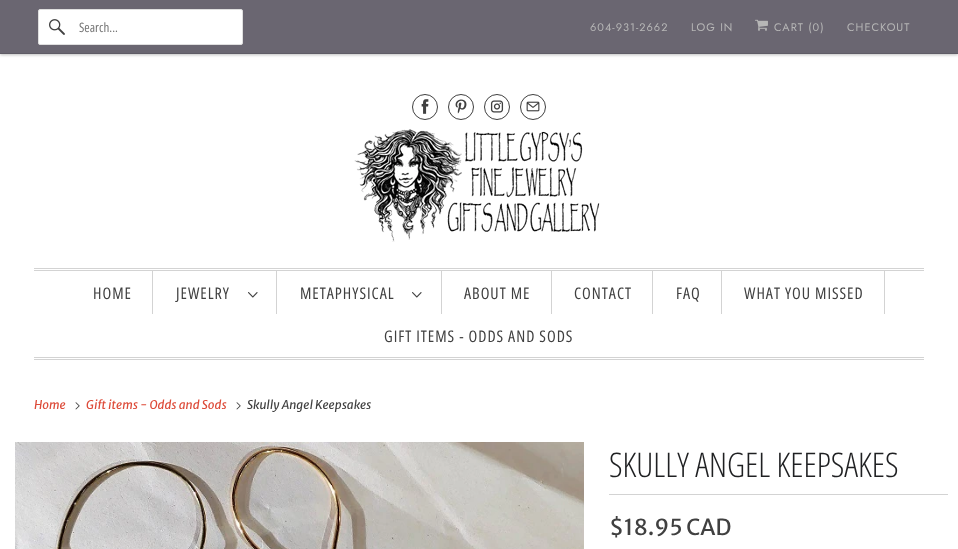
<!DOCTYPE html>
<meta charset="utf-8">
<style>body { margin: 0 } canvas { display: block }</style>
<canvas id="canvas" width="958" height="549"></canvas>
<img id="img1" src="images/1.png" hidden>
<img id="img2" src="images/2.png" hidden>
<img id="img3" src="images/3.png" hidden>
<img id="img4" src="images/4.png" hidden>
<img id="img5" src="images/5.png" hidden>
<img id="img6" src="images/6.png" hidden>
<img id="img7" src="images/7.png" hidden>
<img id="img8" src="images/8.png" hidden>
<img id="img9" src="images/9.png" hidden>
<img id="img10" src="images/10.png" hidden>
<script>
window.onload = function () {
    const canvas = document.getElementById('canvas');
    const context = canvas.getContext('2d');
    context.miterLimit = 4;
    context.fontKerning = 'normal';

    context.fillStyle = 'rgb(255, 255, 255)';
    context.fillRect(0, 0, 958, 549);
    context.fillStyle = 'rgba(0, 0, 0, 0.25)';
    context.filter = 'blur(1.5px)';
    context.beginPath();
    context.rect(0, 1, 958, 54);
    context.fill();
    context.filter = 'none';
    context.fillStyle = 'rgb(106, 102, 113)';
    context.fillRect(0, 0, 958, 53);
    context.fillStyle = 'rgb(95, 92, 102)';
    context.fillRect(0, 53, 958, 1);
    context.fillStyle = 'rgb(255, 255, 255)';
    context.beginPath();
    context.roundRect(38.5, 9.5, 204, 35, 1.5);
    context.fill();
    context.strokeStyle = 'rgb(223, 223, 223)';
    context.stroke();
    context.drawImage(document.getElementById('img1'), 49, 19, 16, 16);
    context.drawImage(document.getElementById('img2'), 755, 19, 13, 12);
    context.beginPath();
    context.arc(425, 107, 12.5, 0, 2 * Math.PI);
    context.strokeStyle = 'rgb(64, 64, 64)';
    context.stroke();
    context.drawImage(document.getElementById('img3'), 421, 99, 8, 15);
    context.beginPath();
    context.arc(461, 107, 12.5, 0, 2 * Math.PI);
    context.stroke();
    context.drawImage(document.getElementById('img4'), 455, 99, 12, 15);
    context.beginPath();
    context.arc(497, 107, 12.5, 0, 2 * Math.PI);
    context.stroke();
    context.drawImage(document.getElementById('img5'), 490, 100, 14, 13);
    context.beginPath();
    context.arc(533, 107, 12.5, 0, 2 * Math.PI);
    context.stroke();
    context.drawImage(document.getElementById('img6'), 526, 101, 14, 11);
    context.drawImage(document.getElementById('img7'), 354, 129, 246, 113);
    context.fillStyle = 'rgb(211, 211, 211)';
    context.fillRect(34, 268, 890, 1);
    context.fillRect(34, 270, 890, 1);
    context.fillRect(34, 357, 890, 1);
    context.fillRect(34, 359, 890, 1);
    context.fillRect(152, 271, 1, 43);
    context.fillRect(276, 271, 1, 43);
    context.drawImage(document.getElementById('img8'), 248, 292, 10, 6);
    context.fillRect(441, 271, 1, 43);
    context.drawImage(document.getElementById('img8'), 412, 292, 10, 6);
    context.fillRect(551, 271, 1, 43);
    context.fillRect(652, 271, 1, 43);
    context.fillRect(721, 271, 1, 43);
    context.fillRect(884, 271, 1, 43);
    context.drawImage(document.getElementById('img9'), 75, 402, 5, 8);
    context.drawImage(document.getElementById('img9'), 236, 402, 5, 8);
    context.drawImage(document.getElementById('img10'), 15, 442, 569, 107);
    context.fillRect(609, 494, 339, 1);
    context.font = '13px Open Sans Condensed';
    context.fillStyle = 'rgb(117, 117, 117)';
    context.fillText('Search...', 79, 32);
    context.letterSpacing = '1px';
    context.font = '11px Jost';
    context.fillStyle = 'rgb(182, 182, 182)';
    context.fillText('604-931-2662', 590, 31);
    context.fillText('LOG IN', 691, 31);
    context.fillText('CART (0)', 774, 31);
    context.fillText('CHECKOUT', 847, 31);
    context.font = '16px Open Sans Condensed';
    context.fillStyle = 'rgb(64, 64, 64)';
    context.fillText('HOME', 93, 299);
    context.fillText('JEWELRY', 176, 299);
    context.fillText('METAPHYSICAL', 300, 299);
    context.fillText('ABOUT ME', 464, 299);
    context.fillText('CONTACT', 574, 299);
    context.fillText('FAQ', 676, 299);
    context.fillText('WHAT YOU MISSED', 744, 299);
    context.fillText('GIFT ITEMS - ODDS AND SODS', 384, 342);
    context.letterSpacing = '0px';
    context.font = 'italic 12px Merriweather Sans';
    context.fillStyle = 'rgb(221, 75, 57)';
    context.fillText('Home', 34, 409);
    context.fillText('Gift items - Odds and Sods', 86, 409);
    context.fillStyle = 'rgb(64, 64, 64)';
    context.fillText('Skully Angel Keepsakes', 247, 409);
    context.font = '300 34px Open Sans Condensed';
    context.fillStyle = 'rgb(31, 32, 34)';
    context.fillText('SKULLY ANGEL KEEPSAKES', 609, 477);
    context.font = '22px Merriweather Sans';
    context.fillStyle = 'rgb(64, 64, 64)';
    context.fillText('$18.95 CAD', 609, 535);
};
</script>
